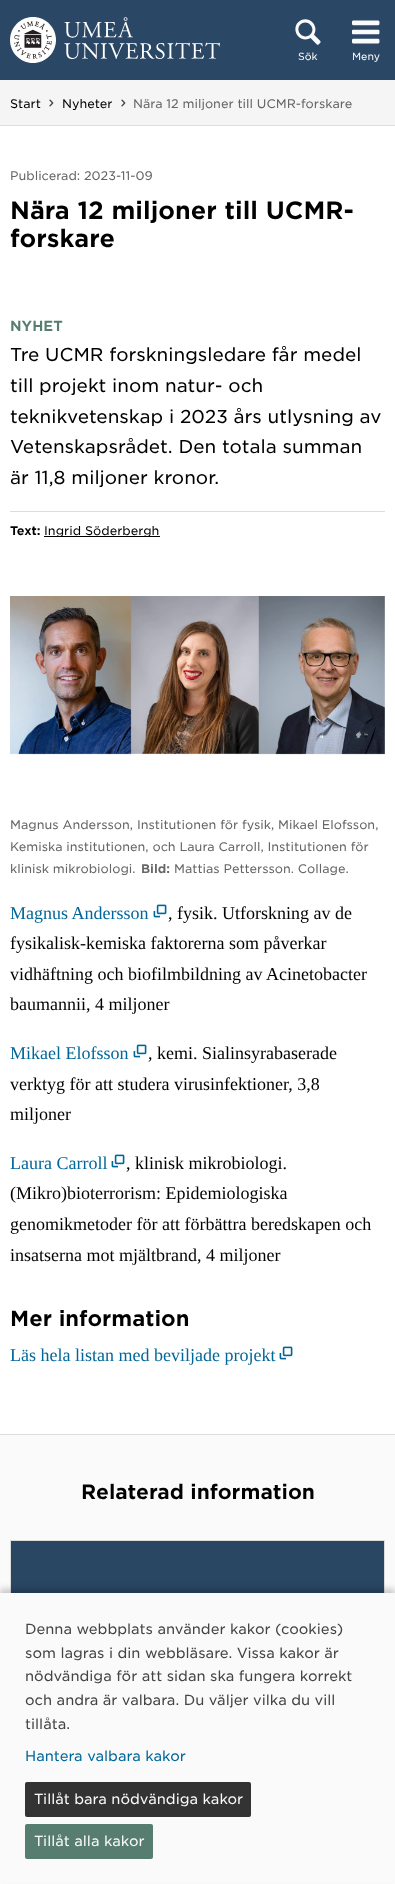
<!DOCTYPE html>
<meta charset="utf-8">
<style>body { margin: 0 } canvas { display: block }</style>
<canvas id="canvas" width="395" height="1884"></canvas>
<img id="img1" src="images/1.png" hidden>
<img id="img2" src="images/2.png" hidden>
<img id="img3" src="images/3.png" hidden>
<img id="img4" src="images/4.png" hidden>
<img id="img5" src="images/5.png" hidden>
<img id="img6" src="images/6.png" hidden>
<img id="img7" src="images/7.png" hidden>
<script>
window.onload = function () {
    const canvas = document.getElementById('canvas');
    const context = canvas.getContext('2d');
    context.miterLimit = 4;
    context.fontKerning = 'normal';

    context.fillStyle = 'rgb(255, 255, 255)';
    context.fillRect(0, 0, 395, 1884);
    context.fillStyle = 'rgb(42, 71, 101)';
    context.fillRect(0, 0, 395, 80);
    context.drawImage(document.getElementById('img1'), 10, 17, 210, 46);
    context.drawImage(document.getElementById('img2'), 295, 19, 26, 26);
    context.drawImage(document.getElementById('img3'), 352, 20, 28, 24);
    context.fillStyle = 'rgb(245, 245, 245)';
    context.fillRect(0, 80, 395, 45);
    context.fillStyle = 'rgb(221, 221, 221)';
    context.fillRect(0, 125, 395, 1);
    context.drawImage(document.getElementById('img4'), 49, 99, 5, 8);
    context.drawImage(document.getElementById('img4'), 121, 99, 5, 8);
    context.fillRect(10, 511, 375, 1);
    context.fillStyle = 'rgb(0, 0, 0)';
    context.fillRect(44, 536, 116, 1);
    context.drawImage(document.getElementById('img5'), 10, 596, 375, 159);
    context.drawImage(document.getElementById('img6'), 153, 904, 14, 14);
    context.drawImage(document.getElementById('img6'), 133, 1044, 14, 14);
    context.drawImage(document.getElementById('img6'), 111, 1154, 14, 14);
    context.drawImage(document.getElementById('img6'), 279, 1346, 14, 14);
    context.fillStyle = 'rgb(250, 250, 250)';
    context.fillRect(0, 1435, 395, 158);
    context.fillStyle = 'rgb(221, 221, 221)';
    context.fillRect(0, 1434, 395, 1);
    context.strokeStyle = 'rgb(221, 221, 221)';
    context.strokeRect(10.5, 1540.5, 374, 211);
    context.drawImage(document.getElementById('img7'), 11, 1541, 373, 52);
    context.fillStyle = 'rgba(0, 0, 0, 0.2)';
    context.filter = 'blur(3px)';
    context.beginPath();
    context.rect(0, 1589, 395, 291);
    context.fill();
    context.filter = 'none';
    context.fillStyle = 'rgb(250, 250, 250)';
    context.fillRect(0, 1593, 395, 290);
    context.fillStyle = 'rgb(51, 51, 51)';
    context.beginPath();
    context.roundRect(25, 1782, 226, 35, 2);
    context.fill();
    context.fillStyle = 'rgb(86, 125, 112)';
    context.beginPath();
    context.roundRect(25, 1824, 128, 35, 2);
    context.fill();
    context.font = '300 10px "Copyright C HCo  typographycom"';
    context.fillStyle = 'rgb(250, 250, 250)';
    context.fillText('Sök', 298, 60);
    context.fillText('Meny', 352, 60);
    context.font = '300 12px "Copyright C HCo  typographycom"';
    context.fillStyle = 'rgb(0, 0, 0)';
    context.fillText('Start', 10, 108);
    context.fillText('Nyheter', 62, 108);
    context.fillStyle = 'rgb(102, 102, 102)';
    context.fillText('Nära 12 miljoner till UCMR-forskare', 133, 108);
    context.fillText('Publicerad: 2023-11-09', 10, 180);
    context.font = '24px "Copyright C HCo  typographycom"';
    context.fillStyle = 'rgb(0, 0, 0)';
    context.fillText('Nära 12 miljoner till UCMR-', 10, 219);
    context.fillText('forskare', 10, 247);
    context.font = '14px "Copyright C HCo  typographycom"';
    context.fillStyle = 'rgb(86, 125, 112)';
    context.fillText('NYHET', 10, 331);
    context.font = '300 18px "Copyright C HCo  typographycom"';
    context.fillStyle = 'rgb(0, 0, 0)';
    context.fillText('Tre UCMR forskningsledare får medel', 10, 361);
    context.fillText('till projekt inom natur- och', 10, 392);
    context.fillText('teknikvetenskap i 2023 års utlysning av', 10, 423);
    context.fillText('Vetenskapsrådet. Den totala summan', 10, 453);
    context.fillText('är 11,8 miljoner kronor.', 10, 484);
    context.font = '12px "Copyright C HCo  typographycom"';
    context.fillText('Text:', 10, 535);
    context.font = '300 12px "Copyright C HCo  typographycom"';
    context.fillText('Ingrid Söderbergh', 44, 535);
    context.fillStyle = 'rgb(102, 102, 102)';
    context.fillText('Magnus Andersson, Institutionen för fysik, Mikael Elofsson,', 10, 829);
    context.fillText('Kemiska institutionen, och Laura Carroll, Institutionen för', 10, 851);
    context.fillText('klinisk mikrobiologi.', 10, 873);
    context.font = '12px "Copyright C HCo  typographycom"';
    context.fillText('Bild:', 141, 873);
    context.font = '300 12px "Copyright C HCo  typographycom"';
    context.fillText('Mattias Pettersson. Collage.', 174, 873);
    context.font = '18px Liberation Serif';
    context.fillStyle = 'rgb(0, 102, 153)';
    context.fillText('Magnus Andersson', 10, 919);
    context.fillStyle = 'rgb(0, 0, 0)';
    context.fillText(', fysik. Utforskning av de', 168, 919);
    context.fillText('fysikalisk-kemiska faktorerna som påverkar', 10, 949);
    context.fillText('vidhäftning och biofilmbildning av Acinetobacter', 10, 980);
    context.fillText('baumannii, 4 miljoner', 10, 1010);
    context.fillStyle = 'rgb(0, 102, 153)';
    context.fillText('Mikael Elofsson', 10, 1059);
    context.fillStyle = 'rgb(0, 0, 0)';
    context.fillText(', kemi. Sialinsyrabaserade', 148, 1059);
    context.fillText('verktyg för att studera virusinfektioner, 3,8', 10, 1090);
    context.fillText('miljoner', 10, 1120);
    context.fillStyle = 'rgb(0, 102, 153)';
    context.fillText('Laura Carroll', 10, 1169);
    context.fillStyle = 'rgb(0, 0, 0)';
    context.fillText(', klinisk mikrobiologi.', 126, 1169);
    context.fillText('(Mikro)bioterrorism: Epidemiologiska', 10, 1199);
    context.fillText('genomikmetoder för att förbättra beredskapen och', 10, 1230);
    context.fillText('insatserna mot mjältbrand, 4 miljoner', 10, 1261);
    context.font = '21px "Copyright C HCo  typographycom"';
    context.fillText('Mer information', 10, 1326);
    context.font = '18px Liberation Serif';
    context.fillStyle = 'rgb(0, 102, 153)';
    context.fillText('Läs hela listan med beviljade projekt', 10, 1361);
    context.font = '20px "Copyright C HCo  typographycom"';
    context.fillStyle = 'rgb(0, 0, 0)';
    context.fillText('Relaterad information', 81, 1499);
    context.font = '300 14px "Copyright C HCo  typographycom"';
    context.fillStyle = 'rgb(68, 68, 68)';
    context.fillText('Denna webbplats använder kakor (cookies)', 25, 1634);
    context.fillText('som lagras i din webbläsare. Vissa kakor är', 25, 1658);
    context.fillText('nödvändiga för att sidan ska fungera korrekt', 25, 1681);
    context.fillText('och andra är valbara. Du väljer vilka du vill', 25, 1705);
    context.fillText('tillåta.', 25, 1729);
    context.fillStyle = 'rgb(0, 102, 153)';
    context.fillText('Hantera valbara kakor', 25, 1761);
    context.fillStyle = 'rgb(250, 250, 250)';
    context.fillText('Tillåt bara nödvändiga kakor', 34, 1804);
    context.fillText('Tillåt alla kakor', 34, 1846);
};
</script>
